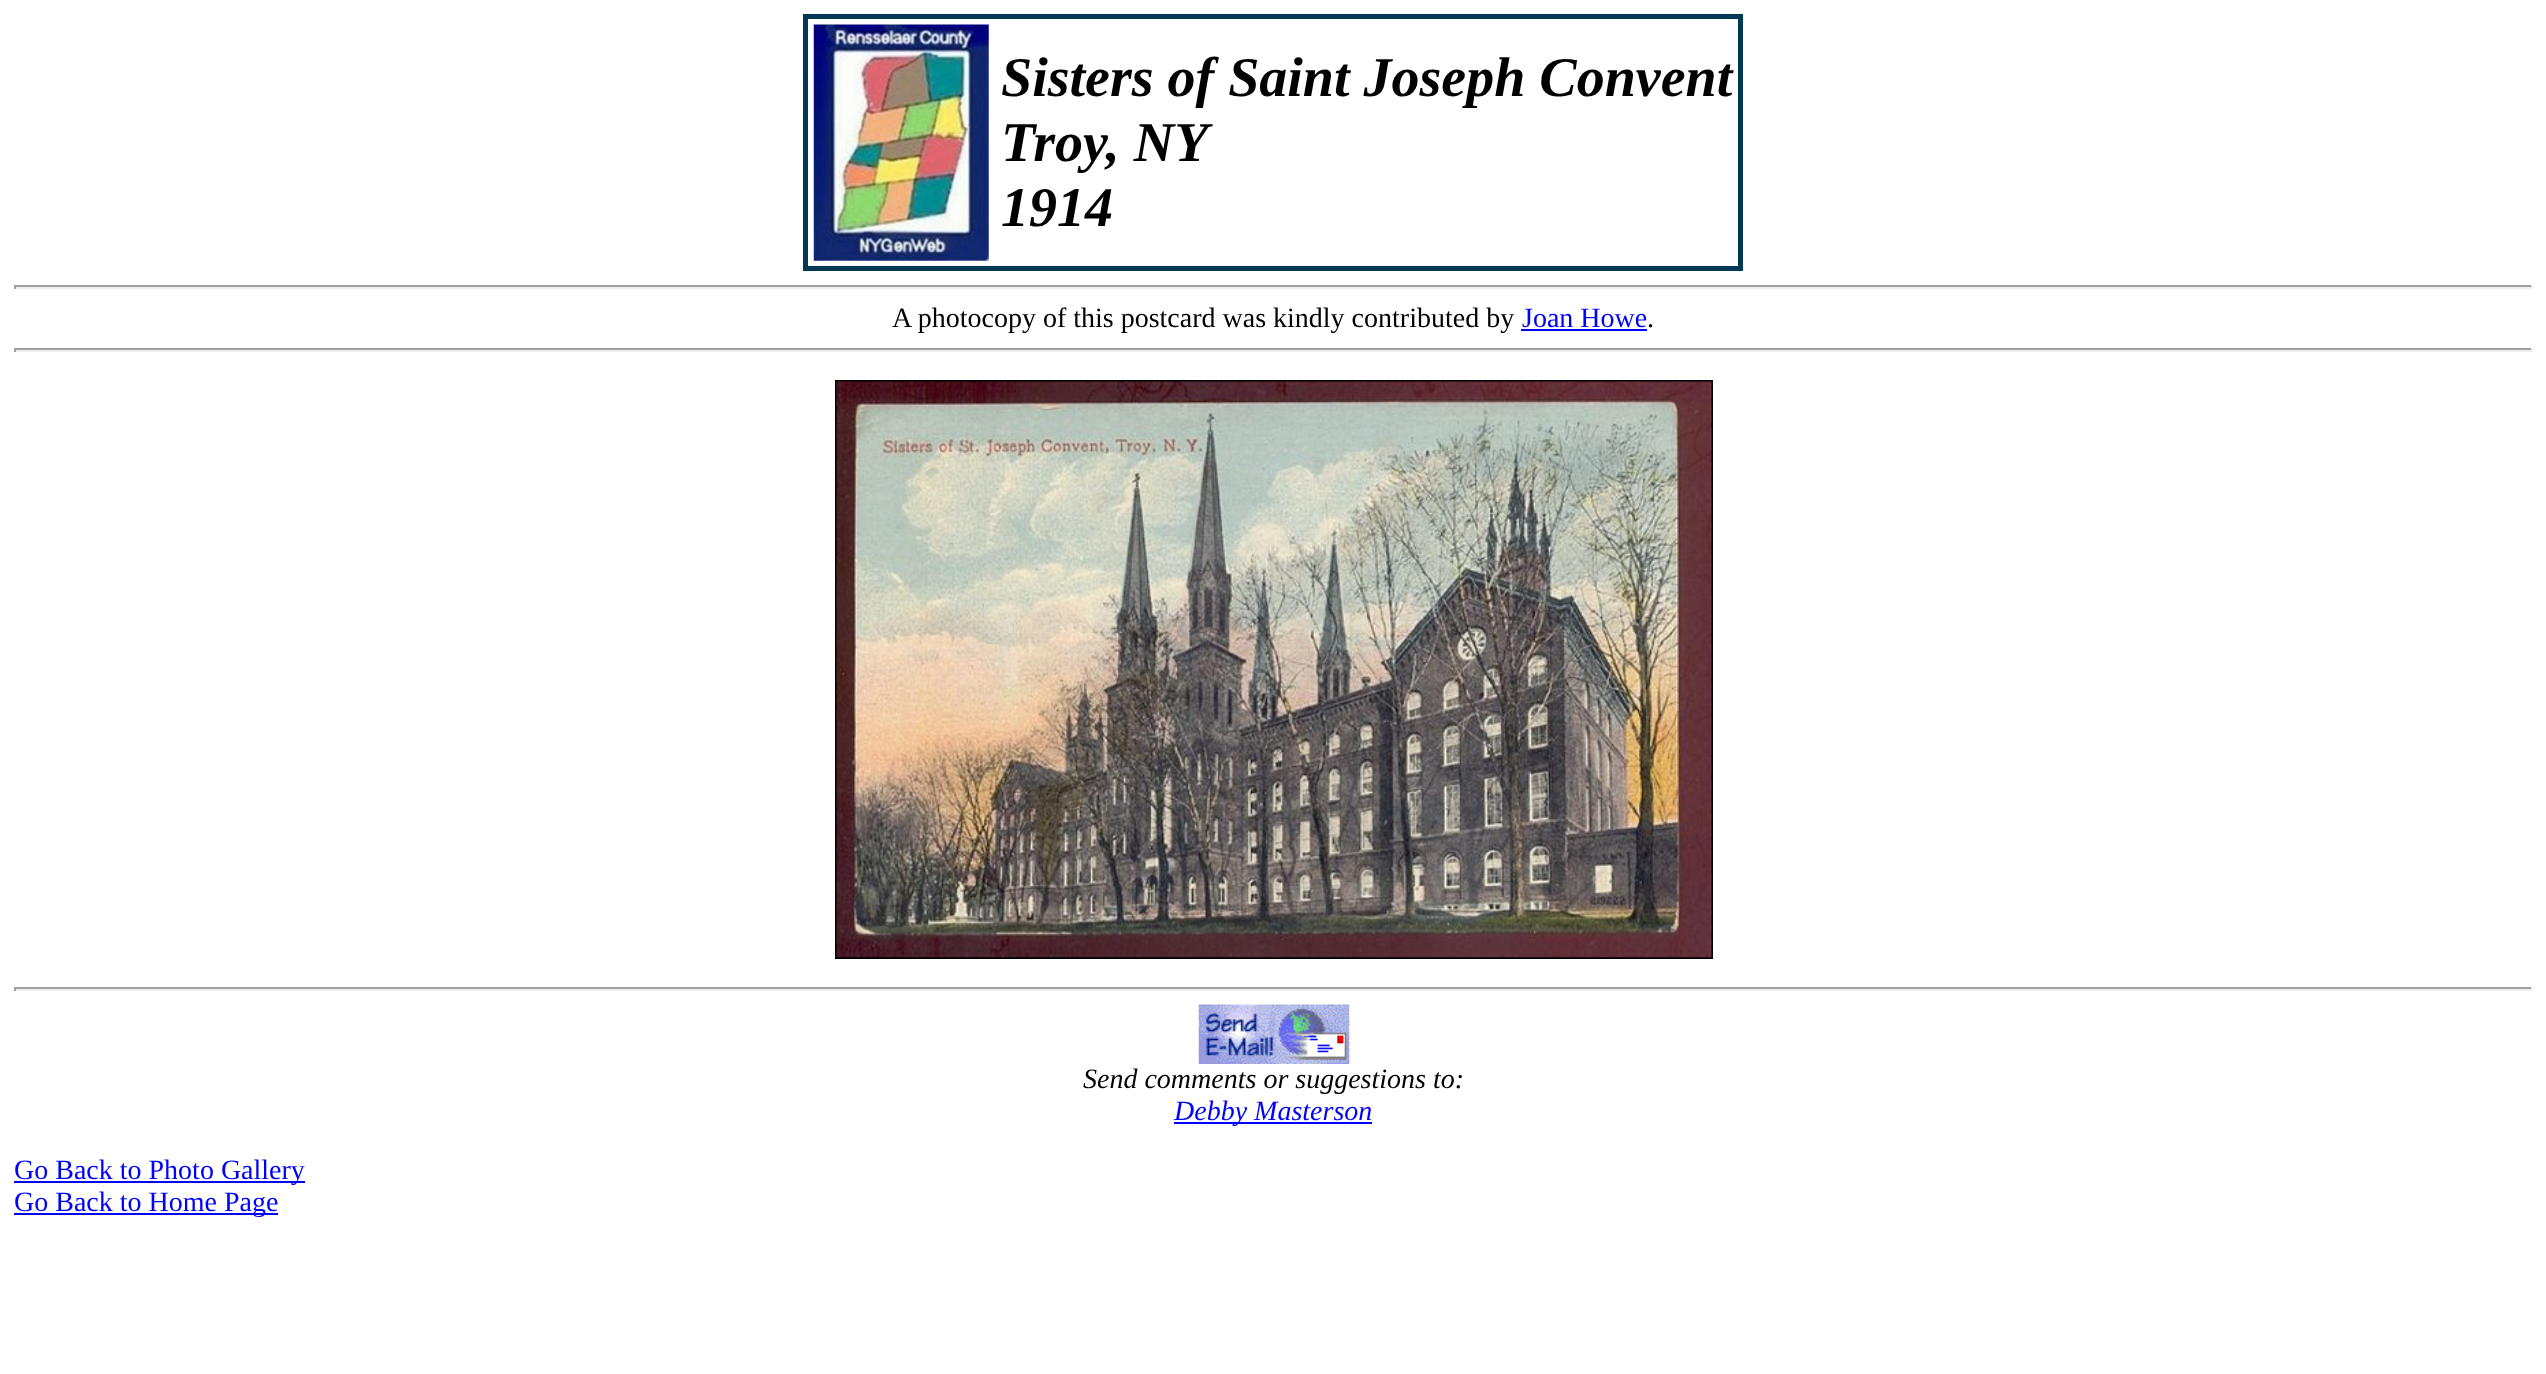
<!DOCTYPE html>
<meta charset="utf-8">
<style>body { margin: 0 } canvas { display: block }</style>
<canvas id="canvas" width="2546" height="1374"></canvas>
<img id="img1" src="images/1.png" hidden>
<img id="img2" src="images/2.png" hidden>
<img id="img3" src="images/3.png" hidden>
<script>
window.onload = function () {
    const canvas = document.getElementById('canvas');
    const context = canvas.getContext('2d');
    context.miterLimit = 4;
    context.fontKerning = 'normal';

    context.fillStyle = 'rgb(255, 255, 255)';
    context.fillRect(0, 0, 2546, 1374);
    context.strokeStyle = 'rgb(0, 57, 85)';
    context.lineWidth = 5;
    context.strokeRect(805.5, 16.5, 935, 252);
    context.drawImage(document.getElementById('img1'), 813, 24, 176, 237);
    context.fillStyle = 'rgb(159, 159, 159)';
    context.fillRect(14, 285, 2518, 2);
    context.fillStyle = 'rgb(238, 238, 238)';
    context.fillRect(2531, 285, 2, 4);
    context.fillRect(14, 287, 2518, 2);
    context.fillStyle = 'rgb(159, 159, 159)';
    context.fillRect(14, 285, 2, 4);
    context.fillStyle = 'rgb(0, 0, 255)';
    context.fillRect(1521, 329, 126, 2);
    context.fillStyle = 'rgb(159, 159, 159)';
    context.fillRect(14, 348, 2518, 2);
    context.fillStyle = 'rgb(238, 238, 238)';
    context.fillRect(2531, 348, 2, 4);
    context.fillRect(14, 350, 2518, 2);
    context.fillStyle = 'rgb(159, 159, 159)';
    context.fillRect(14, 348, 2, 4);
    context.strokeStyle = 'rgb(0, 0, 0)';
    context.lineWidth = 2;
    context.strokeRect(836, 381, 876, 577);
    context.drawImage(document.getElementById('img2'), 836, 381, 876, 577);
    context.fillRect(14, 987, 2518, 2);
    context.fillStyle = 'rgb(238, 238, 238)';
    context.fillRect(2531, 987, 2, 4);
    context.fillRect(14, 989, 2518, 2);
    context.fillStyle = 'rgb(159, 159, 159)';
    context.fillRect(14, 987, 2, 4);
    context.drawImage(document.getElementById('img3'), 1198, 1004, 152, 60);
    context.fillStyle = 'rgb(0, 0, 255)';
    context.fillRect(1174, 1122, 198, 2);
    context.fillRect(14, 1181, 291, 2);
    context.fillRect(14, 1213, 264, 2);
    context.font = 'italic bold 56px Liberation Serif';
    context.fillStyle = 'rgb(0, 0, 0)';
    context.fillText('Sisters of Saint Joseph Convent', 1001, 96);
    context.fillText('Troy, NY', 1001, 161);
    context.fillText('1914', 1001, 226);
    context.font = '28px Liberation Serif';
    context.fillText('A photocopy of this postcard was kindly contributed by', 892, 327);
    context.fillStyle = 'rgb(0, 0, 255)';
    context.fillText('Joan Howe', 1522, 327);
    context.fillStyle = 'rgb(0, 0, 0)';
    context.fillText('.', 1647, 327);
    context.font = 'italic 28px Liberation Serif';
    context.fillText('Send comments or suggestions to:', 1083, 1088);
    context.fillStyle = 'rgb(0, 0, 255)';
    context.fillText('Debby Masterson', 1174, 1120);
    context.font = '28px Liberation Serif';
    context.fillText('Go Back to Photo Gallery', 14, 1179);
    context.fillText('Go Back to Home Page', 14, 1211);
};
</script>
